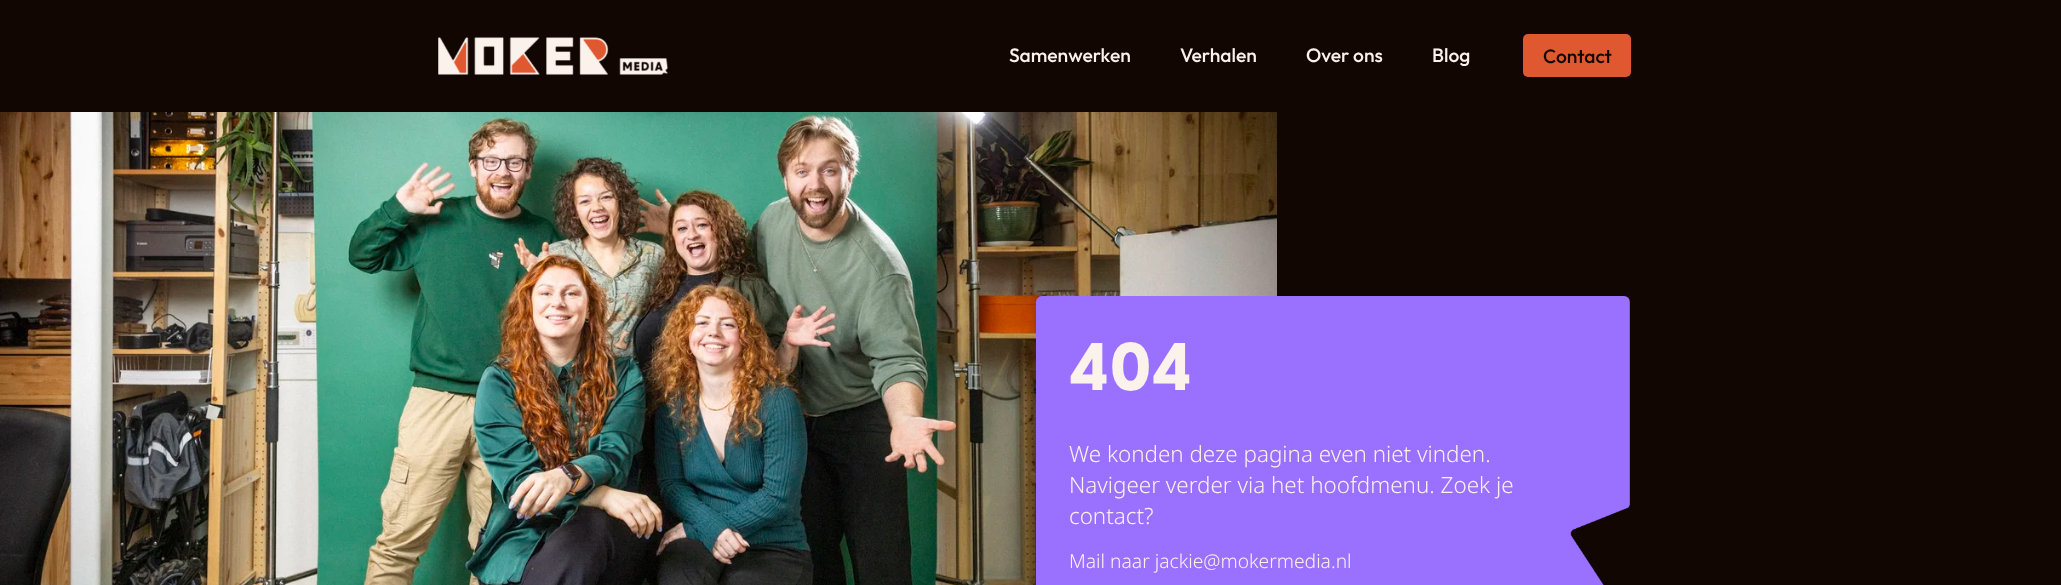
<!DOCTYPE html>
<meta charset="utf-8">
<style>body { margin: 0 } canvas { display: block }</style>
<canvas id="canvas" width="2061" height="585"></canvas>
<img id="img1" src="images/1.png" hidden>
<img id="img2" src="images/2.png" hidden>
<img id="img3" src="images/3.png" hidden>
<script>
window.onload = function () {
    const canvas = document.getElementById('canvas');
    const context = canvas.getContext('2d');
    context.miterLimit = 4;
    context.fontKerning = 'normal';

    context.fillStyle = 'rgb(18, 6, 3)';
    context.fillRect(0, 0, 2061, 585);
    context.drawImage(document.getElementById('img1'), 438, 37, 230, 38);
    context.fillStyle = 'rgb(224, 88, 47)';
    context.beginPath();
    context.roundRect(1523, 34, 108, 43, 5);
    context.fill();
    context.drawImage(document.getElementById('img2'), 0, 112, 1277, 473);
    context.drawImage(document.getElementById('img3'), 1036, 296, 594, 289);
    context.font = '500 19.25px Outfit';
    context.fillStyle = 'rgb(250, 242, 235)';
    context.fillText('Samenwerken', 1009, 62);
    context.fillText('Verhalen', 1180, 62);
    context.fillText('Over ons', 1306, 62);
    context.fillText('Blog', 1432, 62);
    context.fillStyle = 'rgb(18, 6, 3)';
    context.fillText('Contact', 1543, 63);
    context.font = 'bold 64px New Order';
    context.fillStyle = 'rgb(250, 242, 235)';
    context.fillText('404', 1069, 390);
    context.font = '300 22.4px Noto Sans';
    context.fillText('We konden deze pagina even niet vinden.', 1069, 462);
    context.fillText('Navigeer verder via het hoofdmenu. Zoek je', 1069, 493);
    context.fillText('contact?', 1069, 524);
    context.font = '300 19.25px Noto Sans';
    context.fillText('Mail naar jackie@mokermedia.nl', 1069, 568);
};
</script>
